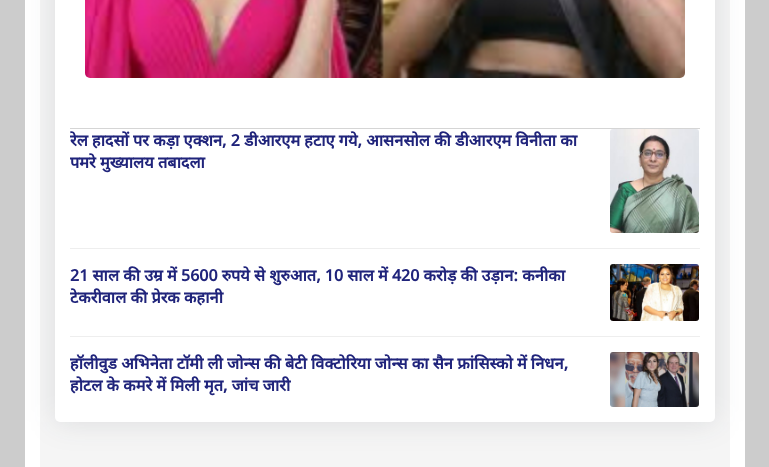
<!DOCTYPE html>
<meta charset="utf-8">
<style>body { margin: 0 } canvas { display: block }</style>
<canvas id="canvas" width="769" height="467"></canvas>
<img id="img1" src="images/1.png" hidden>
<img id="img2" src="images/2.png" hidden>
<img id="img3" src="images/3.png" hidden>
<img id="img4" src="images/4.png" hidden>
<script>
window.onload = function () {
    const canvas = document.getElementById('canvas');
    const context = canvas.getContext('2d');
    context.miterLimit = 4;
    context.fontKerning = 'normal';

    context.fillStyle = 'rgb(204, 204, 204)';
    context.fillRect(0, 0, 769, 467);
    context.fillStyle = 'rgb(255, 255, 255)';
    context.fillRect(25, 0, 720, 467);
    context.fillStyle = 'rgb(245, 245, 245)';
    context.fillRect(40, 0, 690, 467);
    context.fillStyle = 'rgba(31, 45, 61, 0.12)';
    context.filter = 'blur(15px)';
    context.beginPath();
    context.roundRect(55, -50, 660, 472, 5);
    context.fill();
    context.filter = 'none';
    context.fillStyle = 'rgb(255, 255, 255)';
    context.beginPath();
    context.roundRect(55, -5, 660, 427, 5);
    context.fill();
    context.fillStyle = 'rgb(213, 213, 213)';
    context.fillRect(70, 128, 630, 1);
    context.drawImage(document.getElementById('img1'), 85, 0, 600, 78);
    context.drawImage(document.getElementById('img2'), 610, 129, 89, 104);
    context.fillStyle = 'rgb(238, 238, 238)';
    context.fillRect(70, 248, 630, 1);
    context.drawImage(document.getElementById('img3'), 610, 264, 89, 57);
    context.fillRect(70, 336, 630, 1);
    context.drawImage(document.getElementById('img4'), 610, 352, 89, 55);
    context.font = 'bold 16px Noto Sans';
    context.fillStyle = 'rgb(32, 36, 123)';
    context.fillText('रेल हादसों पर कड़ा एक्शन, 2 डीआरएम हटाए गये, आसनसोल की डीआरएम विनीता का', 70, 146);
    context.fillText('पमरे मुख्यालय तबादला', 70, 168);
    context.fillText('21 साल की उम्र में 5600 रुपये से शुरुआत, 10 साल में 420 करोड़ की उड़ान: कनीका', 70, 281);
    context.fillText('टेकरीवाल की प्रेरक कहानी', 70, 303);
    context.fillText('हॉलीवुड अभिनेता टॉमी ली जोन्स की बेटी विक्टोरिया जोन्स का सैन फ्रांसिस्को में निधन,', 70, 369);
    context.fillText('होटल के कमरे में मिली मृत, जांच जारी', 70, 391);
};
</script>
